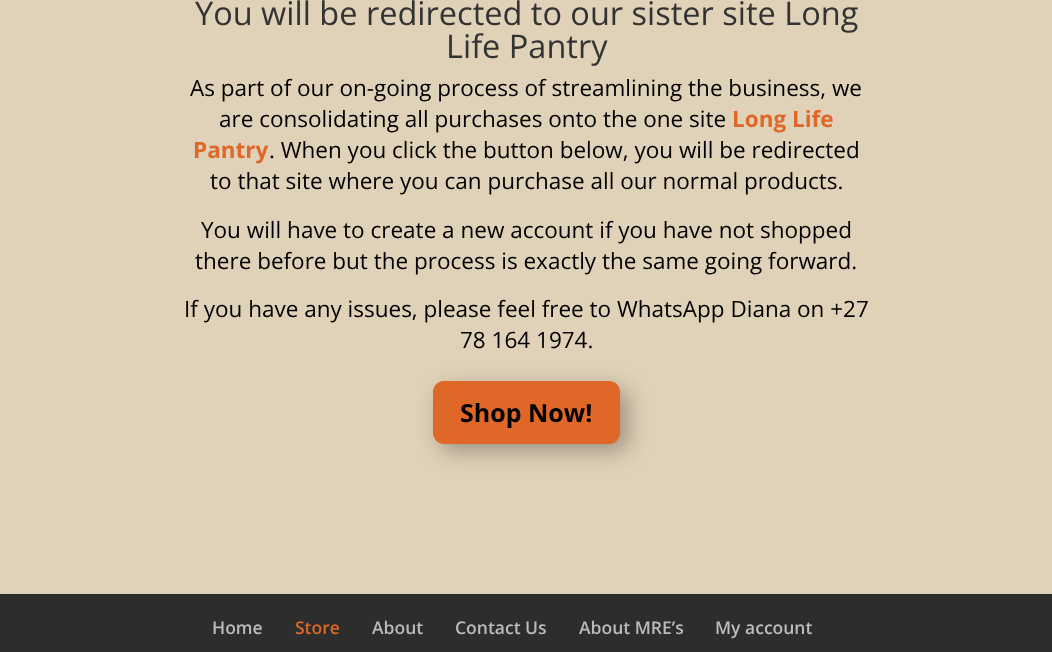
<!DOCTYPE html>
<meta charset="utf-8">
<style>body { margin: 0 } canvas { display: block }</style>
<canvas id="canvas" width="1052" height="652"></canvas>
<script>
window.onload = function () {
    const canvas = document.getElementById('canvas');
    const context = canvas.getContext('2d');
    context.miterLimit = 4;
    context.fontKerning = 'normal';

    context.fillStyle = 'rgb(224, 210, 184)';
    context.fillRect(0, 0, 1052, 652);
    context.fillStyle = 'rgba(0, 0, 0, 0.3)';
    context.filter = 'blur(11px)';
    context.beginPath();
    context.roundRect(440, 389, 188, 62, 11);
    context.fill();
    context.filter = 'none';
    context.fillStyle = 'rgb(223, 103, 40)';
    context.beginPath();
    context.roundRect(433, 381, 187, 63, 11);
    context.fill();
    context.fillStyle = 'rgb(45, 45, 45)';
    context.fillRect(0, 594, 1052, 58);
    context.font = '32.5px Open Sans';
    context.fillStyle = 'rgb(51, 51, 51)';
    context.fillText('You will be redirected to our sister site Long', 195, 25);
    context.fillText('Life Pantry', 446, 58);
    context.font = '22.5px Open Sans';
    context.fillStyle = 'rgb(0, 0, 0)';
    context.fillText('As part of our on-going process of streamlining the business, we', 190, 96);
    context.fillText('are consolidating all purchases onto the one site', 219, 127);
    context.font = 'bold 22.5px Open Sans';
    context.fillStyle = 'rgb(223, 103, 40)';
    context.fillText('Long Life', 732, 127);
    context.fillText('Pantry', 193, 158);
    context.font = '22.5px Open Sans';
    context.fillStyle = 'rgb(0, 0, 0)';
    context.fillText('. When you click the button below, you will be redirected', 269, 158);
    context.fillText('to that site where you can purchase all our normal products.', 210, 189);
    context.fillText('You will have to create a new account if you have not shopped', 201, 238);
    context.fillText('there before but the process is exactly the same going forward.', 195, 269);
    context.fillText('If you have any issues, please feel free to WhatsApp Diana on +27', 184, 317);
    context.fillText('78 164 1974.', 460, 348);
    context.font = 'bold 25px Open Sans';
    context.fillText('Shop Now!', 460, 422);
    context.font = '600 17.5px Open Sans';
    context.fillStyle = 'rgb(187, 187, 187)';
    context.fillText('Home', 212, 634);
    context.fillStyle = 'rgb(223, 103, 40)';
    context.fillText('Store', 295, 634);
    context.fillStyle = 'rgb(187, 187, 187)';
    context.fillText('About', 372, 634);
    context.fillText('Contact Us', 455, 634);
    context.fillText('About MRE’s', 579, 634);
    context.fillText('My account', 715, 634);
};
</script>
